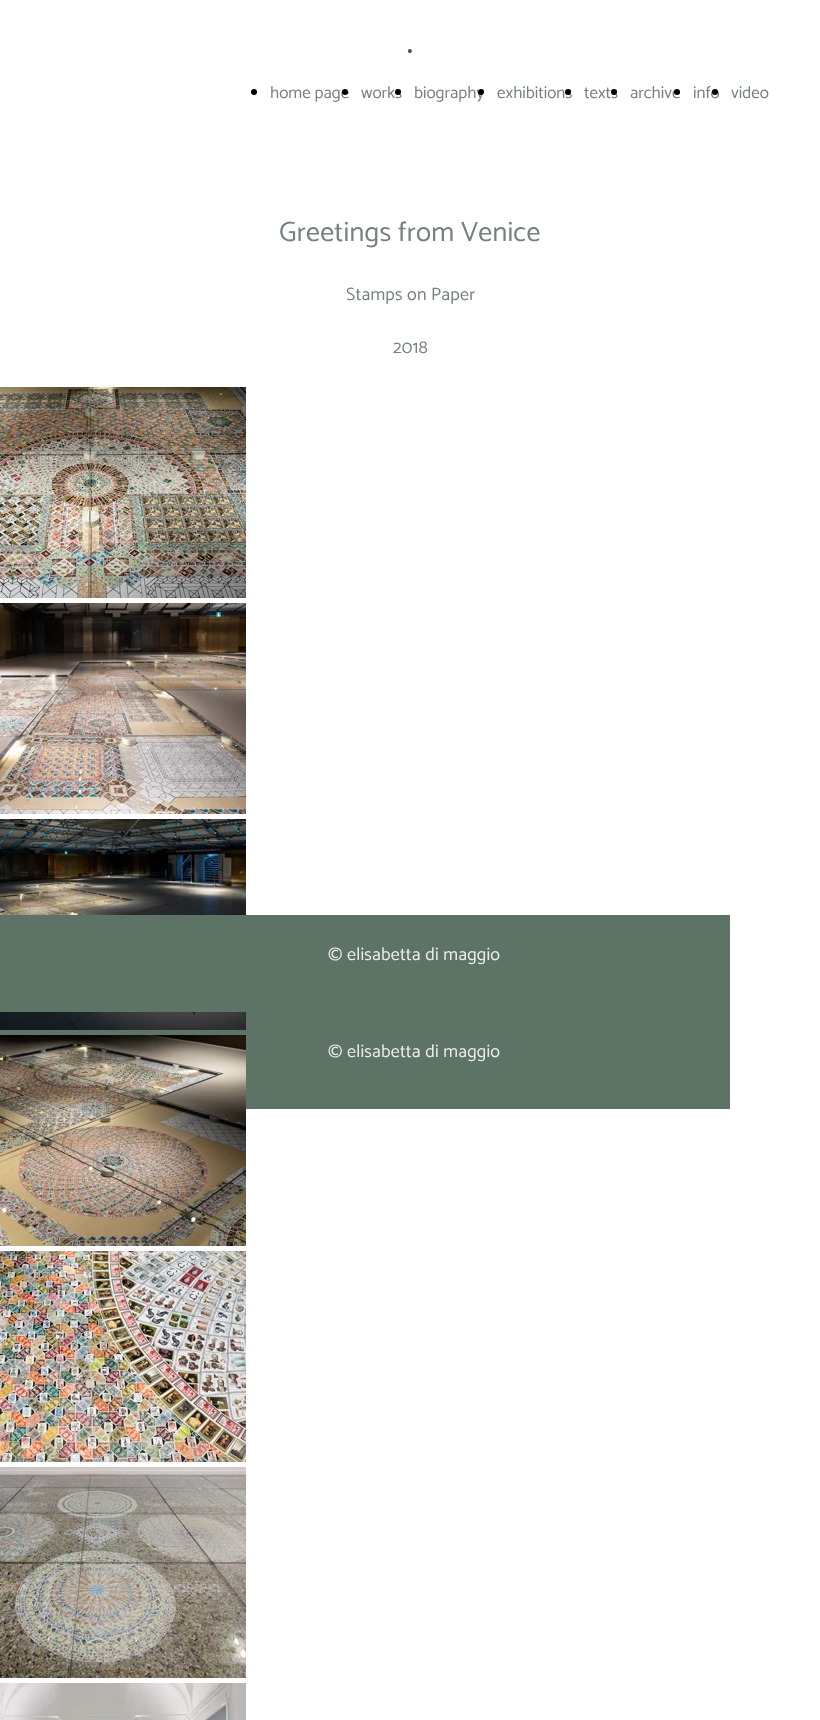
<!DOCTYPE html>
<meta charset="utf-8">
<style>body { margin: 0 } canvas { display: block }</style>
<canvas id="canvas" width="820" height="1720"></canvas>
<img id="img1" src="images/1.png" hidden>
<img id="img2" src="images/2.png" hidden>
<img id="img3" src="images/3.png" hidden>
<img id="img4" src="images/4.png" hidden>
<img id="img5" src="images/5.png" hidden>
<img id="img6" src="images/6.png" hidden>
<img id="img7" src="images/7.png" hidden>
<script>
window.onload = function () {
    const canvas = document.getElementById('canvas');
    const context = canvas.getContext('2d');
    context.miterLimit = 4;
    context.fontKerning = 'normal';

    context.fillStyle = 'rgb(255, 255, 255)';
    context.fillRect(0, 0, 820, 1720);
    context.fillStyle = 'rgb(0, 0, 0)';
    context.beginPath();
    context.arc(254, 92, 3, 0, 2 * Math.PI);
    context.fill();
    context.drawImage(document.getElementById('img1'), 0, 387, 246, 211);
    context.drawImage(document.getElementById('img2'), 0, 603, 246, 211);
    context.fillStyle = 'rgb(93, 115, 101)';
    context.fillRect(0, 1012, 730, 97);
    context.drawImage(document.getElementById('img3'), 0, 819, 246, 211);
    context.drawImage(document.getElementById('img4'), 0, 1035, 246, 211);
    context.drawImage(document.getElementById('img5'), 0, 1251, 246, 211);
    context.drawImage(document.getElementById('img6'), 0, 1467, 246, 211);
    context.drawImage(document.getElementById('img7'), 0, 1683, 246, 37);
    context.fillRect(0, 915, 730, 97);
    context.font = 'bold 28px Catamaran';
    context.fillStyle = 'rgb(71, 88, 78)';
    context.fillText('.', 407, 53);
    context.font = '17px Catamaran';
    context.fillStyle = 'rgb(117, 130, 122)';
    context.fillText('home page', 270, 98);
    context.fillStyle = 'rgb(0, 0, 0)';
    context.beginPath();
    context.arc(345, 92, 3, 0, 2 * Math.PI);
    context.fill();
    context.fillStyle = 'rgb(117, 130, 122)';
    context.fillText('works', 361, 98);
    context.fillStyle = 'rgb(0, 0, 0)';
    context.beginPath();
    context.arc(398, 92, 3, 0, 2 * Math.PI);
    context.fill();
    context.fillStyle = 'rgb(117, 130, 122)';
    context.fillText('biography', 414, 98);
    context.fillStyle = 'rgb(0, 0, 0)';
    context.beginPath();
    context.arc(481, 92, 3, 0, 2 * Math.PI);
    context.fill();
    context.fillStyle = 'rgb(117, 130, 122)';
    context.fillText('exhibitions', 497, 98);
    context.fillStyle = 'rgb(0, 0, 0)';
    context.beginPath();
    context.arc(568, 92, 3, 0, 2 * Math.PI);
    context.fill();
    context.fillStyle = 'rgb(117, 130, 122)';
    context.fillText('texts', 584, 98);
    context.fillStyle = 'rgb(0, 0, 0)';
    context.beginPath();
    context.arc(614, 92, 3, 0, 2 * Math.PI);
    context.fill();
    context.fillStyle = 'rgb(117, 130, 122)';
    context.fillText('archive', 630, 98);
    context.fillStyle = 'rgb(0, 0, 0)';
    context.beginPath();
    context.arc(677, 92, 3, 0, 2 * Math.PI);
    context.fill();
    context.fillStyle = 'rgb(117, 130, 122)';
    context.fillText('info', 693, 98);
    context.fillStyle = 'rgb(0, 0, 0)';
    context.beginPath();
    context.arc(715, 92, 3, 0, 2 * Math.PI);
    context.fill();
    context.fillStyle = 'rgb(117, 130, 122)';
    context.fillText('video', 731, 98);
    context.letterSpacing = '0.2px';
    context.font = '28px Catamaran';
    context.fillText('Greetings from Venice', 279, 241);
    context.font = '18px Catamaran';
    context.fillText('Stamps on Paper', 346, 300);
    context.fillText('2018', 393, 353);
    context.fillStyle = 'rgb(235, 238, 236)';
    context.fillText('© elisabetta di maggio', 328, 960);
    context.fillText('© elisabetta di maggio', 328, 1057);
};
</script>
